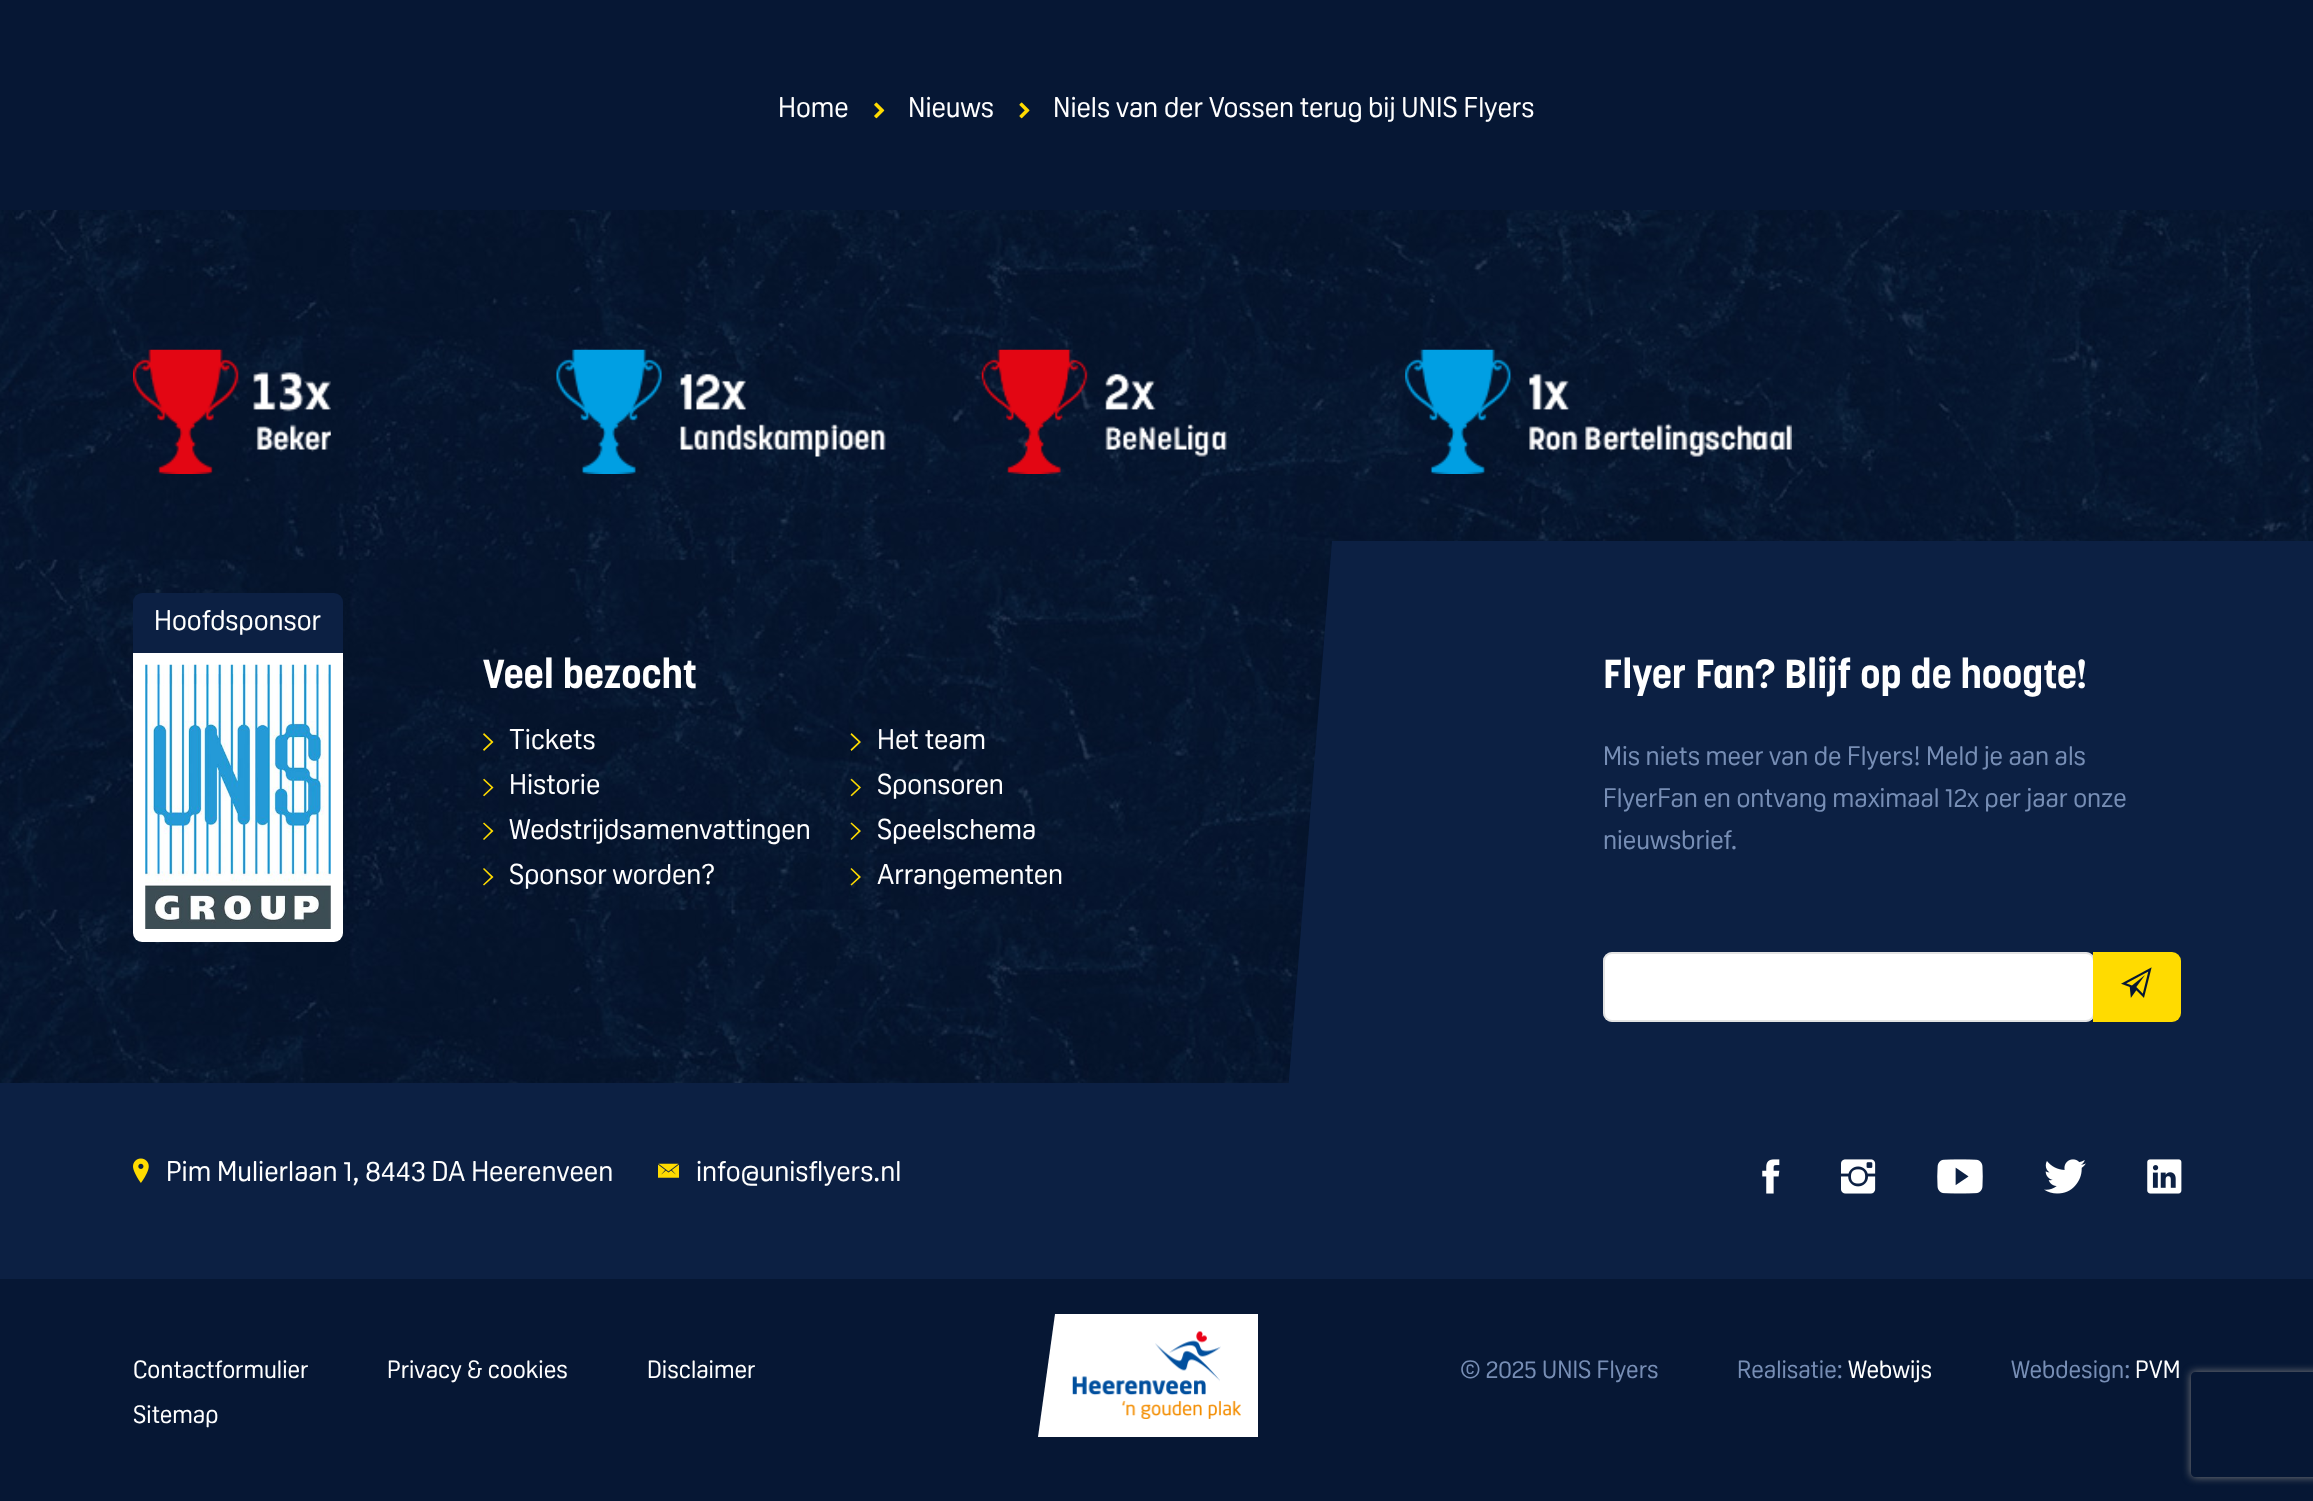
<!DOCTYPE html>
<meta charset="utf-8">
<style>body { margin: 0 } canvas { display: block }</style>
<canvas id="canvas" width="2313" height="1501"></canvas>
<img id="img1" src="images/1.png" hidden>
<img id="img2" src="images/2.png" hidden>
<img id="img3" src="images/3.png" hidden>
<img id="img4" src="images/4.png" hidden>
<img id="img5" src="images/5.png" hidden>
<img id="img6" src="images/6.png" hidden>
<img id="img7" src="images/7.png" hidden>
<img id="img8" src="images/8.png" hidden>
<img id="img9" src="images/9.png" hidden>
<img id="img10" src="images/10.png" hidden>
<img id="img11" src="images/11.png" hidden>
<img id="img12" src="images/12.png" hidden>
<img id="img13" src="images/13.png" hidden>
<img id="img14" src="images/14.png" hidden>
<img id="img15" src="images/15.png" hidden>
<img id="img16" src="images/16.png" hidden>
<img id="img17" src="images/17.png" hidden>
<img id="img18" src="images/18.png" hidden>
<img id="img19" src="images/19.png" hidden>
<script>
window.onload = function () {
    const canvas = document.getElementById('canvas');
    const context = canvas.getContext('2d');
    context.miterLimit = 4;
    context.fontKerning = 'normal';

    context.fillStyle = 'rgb(6, 23, 52)';
    context.fillRect(0, 0, 2313, 1501);
    context.drawImage(document.getElementById('img1'), 874, 102, 11, 17);
    context.drawImage(document.getElementById('img2'), 1019, 102, 11, 17);
    context.drawImage(document.getElementById('img3'), 0, 210, 2313, 873);
    context.drawImage(document.getElementById('img4'), 133, 349, 198, 125);
    context.drawImage(document.getElementById('img5'), 556, 349, 330, 125);
    context.drawImage(document.getElementById('img6'), 981, 349, 246, 125);
    context.drawImage(document.getElementById('img7'), 1405, 349, 387, 125);
    context.fillStyle = 'rgb(12, 32, 67)';
    context.beginPath();
    context.roundRect(133, 593, 210, 60, [9, 9, 0, 0]);
    context.fill();
    context.fillStyle = 'rgb(255, 255, 255)';
    context.beginPath();
    context.roundRect(133, 653, 210, 289, [0, 0, 9, 9]);
    context.fill();
    context.drawImage(document.getElementById('img8'), 145, 664, 186, 265);
    context.fillStyle = 'rgb(255, 219, 0)';
    context.beginPath();
    context.moveTo(483, 734.5);
    context.lineTo(484, 733);
    context.lineTo(493.5, 742);
    context.lineTo(484, 751);
    context.lineTo(483, 749.5);
    context.lineTo(491, 742);
    context.closePath();
    context.fill();
    context.beginPath();
    context.moveTo(850.5, 734.5);
    context.lineTo(851.5, 733);
    context.lineTo(861, 742);
    context.lineTo(851.5, 751);
    context.lineTo(850.5, 749.5);
    context.lineTo(858.5, 742);
    context.closePath();
    context.fill();
    context.drawImage(document.getElementById('img9'), 483, 778, 11, 19);
    context.drawImage(document.getElementById('img10'), 850, 778, 11, 19);
    context.beginPath();
    context.moveTo(483, 823.5);
    context.lineTo(484, 822.5);
    context.lineTo(493.5, 831);
    context.lineTo(484, 840);
    context.lineTo(483, 839);
    context.lineTo(491, 831);
    context.closePath();
    context.fill();
    context.beginPath();
    context.moveTo(850.5, 823.5);
    context.lineTo(851.5, 822.5);
    context.lineTo(861, 831);
    context.lineTo(851.5, 840);
    context.lineTo(850.5, 839);
    context.lineTo(858.5, 831);
    context.closePath();
    context.fill();
    context.beginPath();
    context.moveTo(483, 869);
    context.lineTo(484, 868);
    context.lineTo(493.5, 877);
    context.lineTo(484, 885.5);
    context.lineTo(483, 884.5);
    context.lineTo(491, 877);
    context.closePath();
    context.fill();
    context.beginPath();
    context.moveTo(850.5, 869);
    context.lineTo(851.5, 868);
    context.lineTo(861, 877);
    context.lineTo(851.5, 885.5);
    context.lineTo(850.5, 884.5);
    context.lineTo(858.5, 877);
    context.closePath();
    context.fill();
    context.fillStyle = 'rgb(12, 32, 67)';
    context.fillRect(1332, 541, 981, 542);
    context.save();
    context.beginPath();
    context.rect(0, 210, 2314, 873);
    context.clip();
    context.beginPath();
    context.moveTo(1332, 1416);
    context.lineTo(1262, 1416);
    context.lineTo(1332, 541);
    context.closePath();
    context.fill();
    context.restore();
    context.fillStyle = 'rgb(255, 255, 255)';
    context.beginPath();
    context.roundRect(1603, 952, 492, 70, 9);
    context.fill();
    context.beginPath();
    context.roundRect(1604, 953, 490, 68, 8);
    context.strokeStyle = 'rgba(200, 200, 200, 0.5)';
    context.lineWidth = 2;
    context.stroke();
    context.fillStyle = 'rgb(255, 219, 0)';
    context.beginPath();
    context.roundRect(2093, 952, 88, 70, [0, 9, 9, 0]);
    context.fill();
    context.drawImage(document.getElementById('img11'), 2121, 967, 31, 31);
    context.save();
    context.beginPath();
    context.moveTo(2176, 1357);
    context.lineTo(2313, 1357);
    context.lineTo(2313, 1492);
    context.lineTo(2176, 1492);
    context.closePath();
    context.moveTo(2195, 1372);
    context.lineTo(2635, 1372);
    context.bezierCurveTo(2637, 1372, 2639, 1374, 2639, 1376);
    context.lineTo(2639, 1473);
    context.bezierCurveTo(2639, 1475, 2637, 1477, 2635, 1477);
    context.lineTo(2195, 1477);
    context.bezierCurveTo(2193, 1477, 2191, 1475, 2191, 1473);
    context.lineTo(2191, 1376);
    context.bezierCurveTo(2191, 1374, 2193, 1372, 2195, 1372);
    context.closePath();
    context.clip('evenodd');
    context.fillStyle = 'rgb(128, 128, 128)';
    context.filter = 'blur(4.5px)';
    context.beginPath();
    context.roundRect(2191, 1372, 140, 105, 4);
    context.fill();
    context.filter = 'none';
    context.restore();
    context.fillStyle = 'rgb(12, 32, 67)';
    context.fillRect(0, 1083, 2313, 196);
    context.drawImage(document.getElementById('img12'), 133, 1158, 16, 25);
    context.drawImage(document.getElementById('img13'), 658, 1163, 21, 15);
    context.drawImage(document.getElementById('img14'), 1762, 1159, 18, 35);
    context.drawImage(document.getElementById('img15'), 1841, 1159, 35, 35);
    context.drawImage(document.getElementById('img16'), 1937, 1159, 46, 35);
    context.drawImage(document.getElementById('img17'), 2044, 1159, 42, 35);
    context.drawImage(document.getElementById('img18'), 2147, 1159, 35, 35);
    context.fillStyle = 'rgb(255, 255, 255)';
    context.fillRect(1055, 1314, 203, 123);
    context.beginPath();
    context.moveTo(1055, 1437);
    context.lineTo(1038, 1437);
    context.lineTo(1055, 1314);
    context.closePath();
    context.fill();
    context.drawImage(document.getElementById('img19'), 1072, 1331, 169, 88);
    context.font = '28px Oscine';
    context.fillText('Home', 778, 117);
    context.fillText('Nieuws', 908, 117);
    context.fillText('Niels van der Vossen terug bij UNIS Flyers', 1053, 117);
    context.fillText('Hoofdsponsor', 154, 630);
    context.font = 'bold 40.25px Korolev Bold';
    context.fillText('Veel bezocht', 483, 688);
    context.font = '28px Oscine';
    context.fillText('Tickets', 509, 749);
    context.fillText('Het team', 877, 749);
    context.fillText('Historie', 509, 794);
    context.fillText('Sponsoren', 877, 794);
    context.fillText('Wedstrijdsamenvattingen', 509, 839);
    context.fillText('Speelschema', 877, 839);
    context.fillText('Sponsor worden?', 509, 884);
    context.fillText('Arrangementen', 877, 884);
    context.font = 'bold 40.25px Korolev Bold';
    context.fillText('Flyer Fan? Blijf op de hoogte!', 1603, 688);
    context.font = '26.25px Oscine';
    context.fillStyle = 'rgb(119, 142, 181)';
    context.fillText('Mis niets meer van de Flyers! Meld je aan als', 1603, 765);
    context.fillText('FlyerFan en ontvang maximaal 12x per jaar onze', 1603, 807);
    context.fillText('nieuwsbrief.', 1603, 849);
    context.font = '28px Oscine';
    context.fillStyle = 'rgb(255, 255, 255)';
    context.fillText('Pim Mulierlaan 1, 8443 DA Heerenveen', 166, 1181);
    context.fillText('info@unisflyers.nl', 696, 1181);
    context.font = '24.5px Oscine';
    context.fillText('Contactformulier', 133, 1378);
    context.fillText('Privacy & cookies', 387, 1378);
    context.fillText('Disclaimer', 647, 1378);
    context.fillText('Sitemap', 133, 1423);
    context.fillStyle = 'rgb(119, 142, 181)';
    context.fillText('© 2025 UNIS Flyers', 1460, 1378);
    context.fillText('Realisatie:', 1737, 1378);
    context.fillStyle = 'rgb(255, 255, 255)';
    context.fillText('Webwijs', 1848, 1378);
    context.fillStyle = 'rgb(119, 142, 181)';
    context.fillText('Webdesign:', 2011, 1378);
    context.fillStyle = 'rgb(255, 255, 255)';
    context.fillText('PVM', 2135, 1378);
};
</script>
